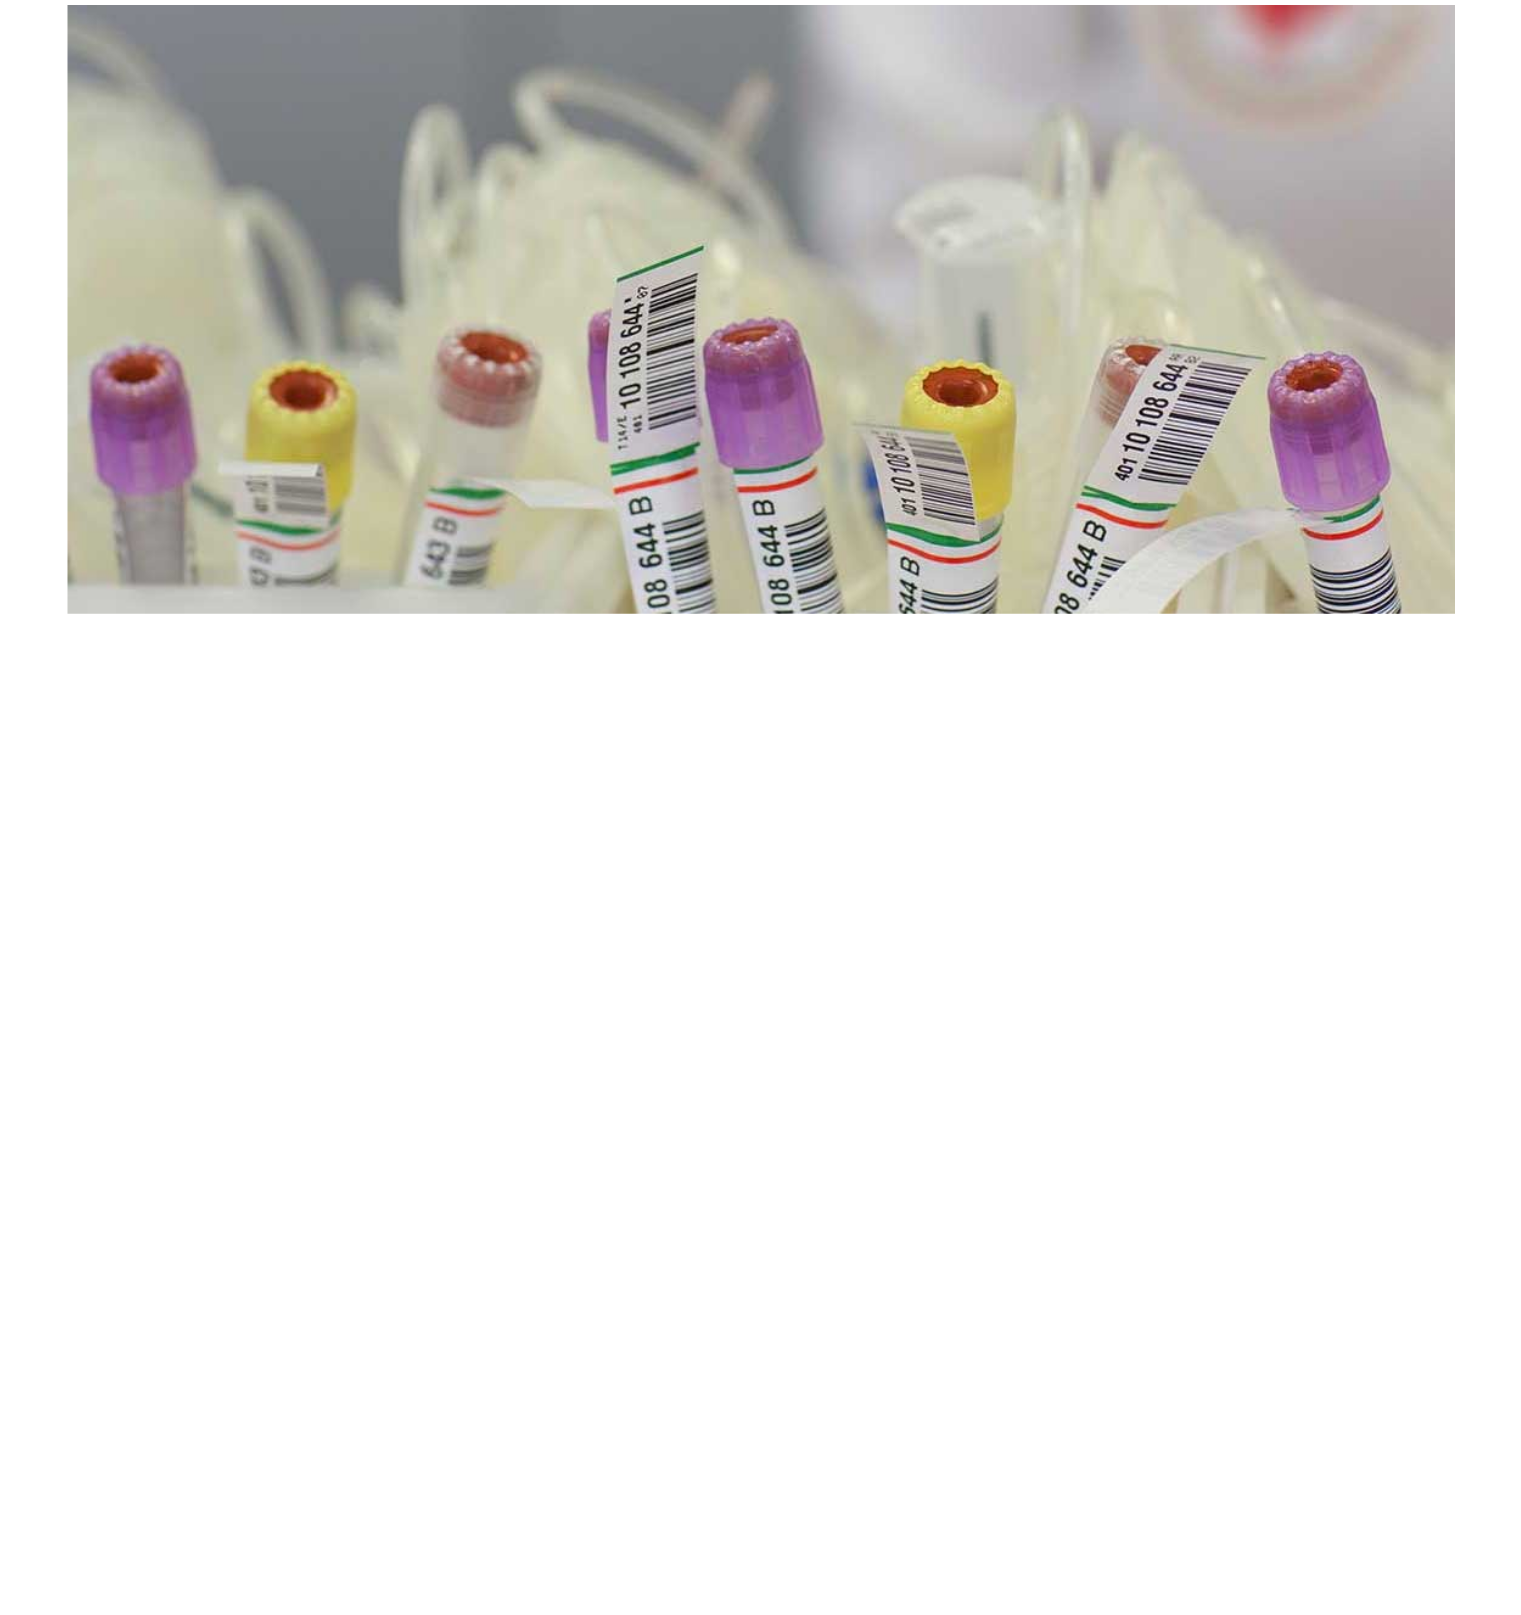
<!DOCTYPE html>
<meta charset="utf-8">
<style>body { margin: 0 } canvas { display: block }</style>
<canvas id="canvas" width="1521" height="1615"></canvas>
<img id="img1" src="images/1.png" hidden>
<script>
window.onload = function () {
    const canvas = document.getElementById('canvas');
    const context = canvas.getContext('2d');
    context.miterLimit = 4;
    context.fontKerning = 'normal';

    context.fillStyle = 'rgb(255, 255, 255)';
    context.fillRect(0, 0, 1521, 1615);
    context.drawImage(document.getElementById('img1'), 67, 5, 1388, 609);
};
</script>
